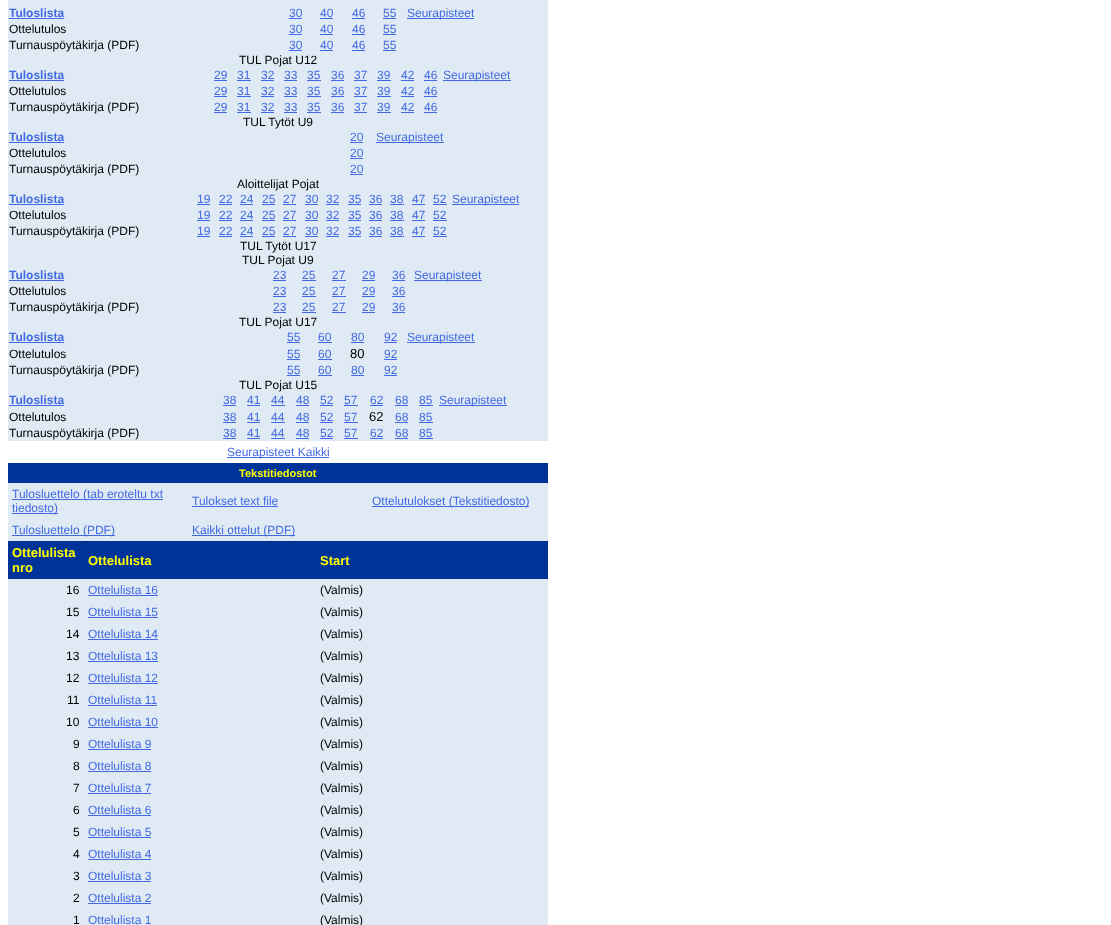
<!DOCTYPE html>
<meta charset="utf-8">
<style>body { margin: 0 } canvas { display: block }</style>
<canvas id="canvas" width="1111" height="925"></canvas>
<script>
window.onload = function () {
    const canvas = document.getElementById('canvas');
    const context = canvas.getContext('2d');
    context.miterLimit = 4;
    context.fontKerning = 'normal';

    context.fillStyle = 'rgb(255, 255, 255)';
    context.fillRect(0, 0, 1111, 925);
    context.fillStyle = 'rgb(223, 234, 244)';
    context.fillRect(8, 0, 540, 441);
    context.fillStyle = 'rgb(65, 105, 225)';
    context.fillRect(9, 18, 55, 1);
    context.fillRect(289, 18, 13, 1);
    context.fillRect(320, 18, 13, 1);
    context.fillRect(352, 18, 13, 1);
    context.fillRect(383, 18, 13, 1);
    context.fillRect(407, 18, 67, 1);
    context.fillRect(289, 34, 13, 1);
    context.fillRect(320, 34, 13, 1);
    context.fillRect(352, 34, 13, 1);
    context.fillRect(383, 34, 13, 1);
    context.fillRect(289, 50, 13, 1);
    context.fillRect(320, 50, 13, 1);
    context.fillRect(352, 50, 13, 1);
    context.fillRect(383, 50, 13, 1);
    context.fillRect(9, 80, 55, 1);
    context.fillRect(214, 80, 13, 1);
    context.fillRect(237, 80, 14, 1);
    context.fillRect(261, 80, 13, 1);
    context.fillRect(284, 80, 13, 1);
    context.fillRect(307, 80, 14, 1);
    context.fillRect(331, 80, 13, 1);
    context.fillRect(354, 80, 13, 1);
    context.fillRect(377, 80, 14, 1);
    context.fillRect(401, 80, 13, 1);
    context.fillRect(424, 80, 13, 1);
    context.fillRect(443, 80, 68, 1);
    context.fillRect(214, 96, 13, 1);
    context.fillRect(237, 96, 14, 1);
    context.fillRect(261, 96, 13, 1);
    context.fillRect(284, 96, 13, 1);
    context.fillRect(307, 96, 14, 1);
    context.fillRect(331, 96, 13, 1);
    context.fillRect(354, 96, 13, 1);
    context.fillRect(377, 96, 14, 1);
    context.fillRect(401, 96, 13, 1);
    context.fillRect(424, 96, 13, 1);
    context.fillRect(214, 112, 13, 1);
    context.fillRect(237, 112, 14, 1);
    context.fillRect(261, 112, 13, 1);
    context.fillRect(284, 112, 13, 1);
    context.fillRect(307, 112, 14, 1);
    context.fillRect(331, 112, 13, 1);
    context.fillRect(354, 112, 13, 1);
    context.fillRect(377, 112, 14, 1);
    context.fillRect(401, 112, 13, 1);
    context.fillRect(424, 112, 13, 1);
    context.fillRect(9, 142, 55, 1);
    context.fillRect(350, 142, 13, 1);
    context.fillRect(376, 142, 68, 1);
    context.fillRect(350, 158, 13, 1);
    context.fillRect(350, 174, 13, 1);
    context.fillRect(9, 204, 55, 1);
    context.fillRect(197, 204, 13, 1);
    context.fillRect(219, 204, 13, 1);
    context.fillRect(240, 204, 13, 1);
    context.fillRect(262, 204, 13, 1);
    context.fillRect(283, 204, 13, 1);
    context.fillRect(305, 204, 13, 1);
    context.fillRect(326, 204, 13, 1);
    context.fillRect(348, 204, 13, 1);
    context.fillRect(369, 204, 13, 1);
    context.fillRect(390, 204, 14, 1);
    context.fillRect(412, 204, 13, 1);
    context.fillRect(433, 204, 14, 1);
    context.fillRect(452, 204, 67, 1);
    context.fillRect(197, 220, 13, 1);
    context.fillRect(219, 220, 13, 1);
    context.fillRect(240, 220, 13, 1);
    context.fillRect(262, 220, 13, 1);
    context.fillRect(283, 220, 13, 1);
    context.fillRect(305, 220, 13, 1);
    context.fillRect(326, 220, 13, 1);
    context.fillRect(348, 220, 13, 1);
    context.fillRect(369, 220, 13, 1);
    context.fillRect(390, 220, 14, 1);
    context.fillRect(412, 220, 13, 1);
    context.fillRect(433, 220, 14, 1);
    context.fillRect(197, 236, 13, 1);
    context.fillRect(219, 236, 13, 1);
    context.fillRect(240, 236, 13, 1);
    context.fillRect(262, 236, 13, 1);
    context.fillRect(283, 236, 13, 1);
    context.fillRect(305, 236, 13, 1);
    context.fillRect(326, 236, 13, 1);
    context.fillRect(348, 236, 13, 1);
    context.fillRect(369, 236, 13, 1);
    context.fillRect(390, 236, 14, 1);
    context.fillRect(412, 236, 13, 1);
    context.fillRect(433, 236, 14, 1);
    context.fillRect(9, 280, 55, 1);
    context.fillRect(273, 280, 13, 1);
    context.fillRect(302, 280, 14, 1);
    context.fillRect(332, 280, 14, 1);
    context.fillRect(362, 280, 13, 1);
    context.fillRect(392, 280, 13, 1);
    context.fillRect(414, 280, 68, 1);
    context.fillRect(273, 296, 13, 1);
    context.fillRect(302, 296, 14, 1);
    context.fillRect(332, 296, 14, 1);
    context.fillRect(362, 296, 13, 1);
    context.fillRect(392, 296, 13, 1);
    context.fillRect(273, 312, 13, 1);
    context.fillRect(302, 312, 14, 1);
    context.fillRect(332, 312, 14, 1);
    context.fillRect(362, 312, 13, 1);
    context.fillRect(392, 312, 13, 1);
    context.fillRect(9, 342, 55, 1);
    context.fillRect(287, 342, 13, 1);
    context.fillRect(318, 342, 14, 1);
    context.fillRect(351, 342, 13, 1);
    context.fillRect(384, 342, 13, 1);
    context.fillRect(407, 342, 68, 1);
    context.fillRect(287, 359, 13, 1);
    context.fillRect(318, 359, 14, 1);
    context.fillRect(384, 359, 13, 1);
    context.fillRect(287, 375, 13, 1);
    context.fillRect(318, 375, 14, 1);
    context.fillRect(351, 375, 13, 1);
    context.fillRect(384, 375, 13, 1);
    context.fillRect(9, 405, 55, 1);
    context.fillRect(223, 405, 13, 1);
    context.fillRect(247, 405, 13, 1);
    context.fillRect(271, 405, 14, 1);
    context.fillRect(296, 405, 13, 1);
    context.fillRect(320, 405, 13, 1);
    context.fillRect(344, 405, 14, 1);
    context.fillRect(370, 405, 13, 1);
    context.fillRect(395, 405, 13, 1);
    context.fillRect(419, 405, 14, 1);
    context.fillRect(439, 405, 68, 1);
    context.fillRect(223, 422, 13, 1);
    context.fillRect(247, 422, 13, 1);
    context.fillRect(271, 422, 14, 1);
    context.fillRect(296, 422, 13, 1);
    context.fillRect(320, 422, 13, 1);
    context.fillRect(344, 422, 14, 1);
    context.fillRect(395, 422, 13, 1);
    context.fillRect(419, 422, 14, 1);
    context.fillRect(223, 438, 13, 1);
    context.fillRect(247, 438, 13, 1);
    context.fillRect(271, 438, 14, 1);
    context.fillRect(296, 438, 13, 1);
    context.fillRect(320, 438, 13, 1);
    context.fillRect(344, 438, 14, 1);
    context.fillRect(370, 438, 13, 1);
    context.fillRect(395, 438, 13, 1);
    context.fillRect(419, 438, 14, 1);
    context.fillRect(227, 457, 102, 1);
    context.fillStyle = 'rgb(0, 51, 153)';
    context.fillRect(8, 463, 540, 20);
    context.fillStyle = 'rgb(223, 234, 244)';
    context.fillRect(8, 483, 540, 36);
    context.fillStyle = 'rgb(65, 105, 225)';
    context.fillRect(12, 499, 151, 1);
    context.fillRect(12, 513, 46, 1);
    context.fillRect(192, 506, 86, 1);
    context.fillRect(372, 506, 157, 1);
    context.fillStyle = 'rgb(223, 234, 244)';
    context.fillRect(8, 519, 540, 22);
    context.fillStyle = 'rgb(65, 105, 225)';
    context.fillRect(12, 535, 103, 1);
    context.fillRect(192, 535, 103, 1);
    context.fillStyle = 'rgb(0, 51, 153)';
    context.fillRect(8, 541, 540, 38);
    context.fillStyle = 'rgb(223, 234, 244)';
    context.fillRect(8, 579, 540, 22);
    context.fillStyle = 'rgb(65, 105, 225)';
    context.fillRect(88, 595, 70, 1);
    context.fillStyle = 'rgb(223, 234, 244)';
    context.fillRect(8, 601, 540, 22);
    context.fillStyle = 'rgb(65, 105, 225)';
    context.fillRect(88, 617, 70, 1);
    context.fillStyle = 'rgb(223, 234, 244)';
    context.fillRect(8, 623, 540, 22);
    context.fillStyle = 'rgb(65, 105, 225)';
    context.fillRect(88, 639, 70, 1);
    context.fillStyle = 'rgb(223, 234, 244)';
    context.fillRect(8, 645, 540, 22);
    context.fillStyle = 'rgb(65, 105, 225)';
    context.fillRect(88, 661, 70, 1);
    context.fillStyle = 'rgb(223, 234, 244)';
    context.fillRect(8, 667, 540, 22);
    context.fillStyle = 'rgb(65, 105, 225)';
    context.fillRect(88, 683, 70, 1);
    context.fillStyle = 'rgb(223, 234, 244)';
    context.fillRect(8, 689, 540, 22);
    context.fillStyle = 'rgb(65, 105, 225)';
    context.fillRect(88, 705, 69, 1);
    context.fillStyle = 'rgb(223, 234, 244)';
    context.fillRect(8, 711, 540, 22);
    context.fillStyle = 'rgb(65, 105, 225)';
    context.fillRect(88, 727, 70, 1);
    context.fillStyle = 'rgb(223, 234, 244)';
    context.fillRect(8, 733, 540, 22);
    context.fillStyle = 'rgb(65, 105, 225)';
    context.fillRect(88, 749, 63, 1);
    context.fillStyle = 'rgb(223, 234, 244)';
    context.fillRect(8, 755, 540, 22);
    context.fillStyle = 'rgb(65, 105, 225)';
    context.fillRect(88, 771, 63, 1);
    context.fillStyle = 'rgb(223, 234, 244)';
    context.fillRect(8, 777, 540, 22);
    context.fillStyle = 'rgb(65, 105, 225)';
    context.fillRect(88, 793, 63, 1);
    context.fillStyle = 'rgb(223, 234, 244)';
    context.fillRect(8, 799, 540, 22);
    context.fillStyle = 'rgb(65, 105, 225)';
    context.fillRect(88, 815, 63, 1);
    context.fillStyle = 'rgb(223, 234, 244)';
    context.fillRect(8, 821, 540, 22);
    context.fillStyle = 'rgb(65, 105, 225)';
    context.fillRect(88, 837, 63, 1);
    context.fillStyle = 'rgb(223, 234, 244)';
    context.fillRect(8, 843, 540, 22);
    context.fillStyle = 'rgb(65, 105, 225)';
    context.fillRect(88, 859, 63, 1);
    context.fillStyle = 'rgb(223, 234, 244)';
    context.fillRect(8, 865, 540, 22);
    context.fillStyle = 'rgb(65, 105, 225)';
    context.fillRect(88, 881, 63, 1);
    context.fillStyle = 'rgb(223, 234, 244)';
    context.fillRect(8, 887, 540, 22);
    context.fillStyle = 'rgb(65, 105, 225)';
    context.fillRect(88, 903, 63, 1);
    context.fillStyle = 'rgb(223, 234, 244)';
    context.fillRect(8, 909, 540, 16);
    context.font = 'bold 12px Liberation Sans';
    context.fillStyle = 'rgb(65, 105, 225)';
    context.fillText('Tuloslista', 9, 17);
    context.font = '12px Liberation Sans';
    context.fillText('30', 289, 17);
    context.fillText('40', 320, 17);
    context.fillText('46', 352, 17);
    context.fillText('55', 383, 17);
    context.fillText('Seurapisteet', 407, 17);
    context.fillStyle = 'rgb(0, 0, 0)';
    context.fillText('Ottelutulos', 9, 33);
    context.fillStyle = 'rgb(65, 105, 225)';
    context.fillText('30', 289, 33);
    context.fillText('40', 320, 33);
    context.fillText('46', 352, 33);
    context.fillText('55', 383, 33);
    context.fillStyle = 'rgb(0, 0, 0)';
    context.fillText('Turnauspöytäkirja (PDF)', 9, 49);
    context.fillStyle = 'rgb(65, 105, 225)';
    context.fillText('30', 289, 49);
    context.fillText('40', 320, 49);
    context.fillText('46', 352, 49);
    context.fillText('55', 383, 49);
    context.fillStyle = 'rgb(0, 0, 0)';
    context.fillText('TUL Pojat U12', 239, 64);
    context.font = 'bold 12px Liberation Sans';
    context.fillStyle = 'rgb(65, 105, 225)';
    context.fillText('Tuloslista', 9, 79);
    context.font = '12px Liberation Sans';
    context.fillText('29', 214, 79);
    context.fillText('31', 237, 79);
    context.fillText('32', 261, 79);
    context.fillText('33', 284, 79);
    context.fillText('35', 307, 79);
    context.fillText('36', 331, 79);
    context.fillText('37', 354, 79);
    context.fillText('39', 377, 79);
    context.fillText('42', 401, 79);
    context.fillText('46', 424, 79);
    context.fillText('Seurapisteet', 443, 79);
    context.fillStyle = 'rgb(0, 0, 0)';
    context.fillText('Ottelutulos', 9, 95);
    context.fillStyle = 'rgb(65, 105, 225)';
    context.fillText('29', 214, 95);
    context.fillText('31', 237, 95);
    context.fillText('32', 261, 95);
    context.fillText('33', 284, 95);
    context.fillText('35', 307, 95);
    context.fillText('36', 331, 95);
    context.fillText('37', 354, 95);
    context.fillText('39', 377, 95);
    context.fillText('42', 401, 95);
    context.fillText('46', 424, 95);
    context.fillStyle = 'rgb(0, 0, 0)';
    context.fillText('Turnauspöytäkirja (PDF)', 9, 111);
    context.fillStyle = 'rgb(65, 105, 225)';
    context.fillText('29', 214, 111);
    context.fillText('31', 237, 111);
    context.fillText('32', 261, 111);
    context.fillText('33', 284, 111);
    context.fillText('35', 307, 111);
    context.fillText('36', 331, 111);
    context.fillText('37', 354, 111);
    context.fillText('39', 377, 111);
    context.fillText('42', 401, 111);
    context.fillText('46', 424, 111);
    context.fillStyle = 'rgb(0, 0, 0)';
    context.fillText('TUL Tytöt U9', 243, 126);
    context.font = 'bold 12px Liberation Sans';
    context.fillStyle = 'rgb(65, 105, 225)';
    context.fillText('Tuloslista', 9, 141);
    context.font = '12px Liberation Sans';
    context.fillText('20', 350, 141);
    context.fillText('Seurapisteet', 376, 141);
    context.fillStyle = 'rgb(0, 0, 0)';
    context.fillText('Ottelutulos', 9, 157);
    context.fillStyle = 'rgb(65, 105, 225)';
    context.fillText('20', 350, 157);
    context.fillStyle = 'rgb(0, 0, 0)';
    context.fillText('Turnauspöytäkirja (PDF)', 9, 173);
    context.fillStyle = 'rgb(65, 105, 225)';
    context.fillText('20', 350, 173);
    context.fillStyle = 'rgb(0, 0, 0)';
    context.fillText('Aloittelijat Pojat', 237, 188);
    context.font = 'bold 12px Liberation Sans';
    context.fillStyle = 'rgb(65, 105, 225)';
    context.fillText('Tuloslista', 9, 203);
    context.font = '12px Liberation Sans';
    context.fillText('19', 197, 203);
    context.fillText('22', 219, 203);
    context.fillText('24', 240, 203);
    context.fillText('25', 262, 203);
    context.fillText('27', 283, 203);
    context.fillText('30', 305, 203);
    context.fillText('32', 326, 203);
    context.fillText('35', 348, 203);
    context.fillText('36', 369, 203);
    context.fillText('38', 390, 203);
    context.fillText('47', 412, 203);
    context.fillText('52', 433, 203);
    context.fillText('Seurapisteet', 452, 203);
    context.fillStyle = 'rgb(0, 0, 0)';
    context.fillText('Ottelutulos', 9, 219);
    context.fillStyle = 'rgb(65, 105, 225)';
    context.fillText('19', 197, 219);
    context.fillText('22', 219, 219);
    context.fillText('24', 240, 219);
    context.fillText('25', 262, 219);
    context.fillText('27', 283, 219);
    context.fillText('30', 305, 219);
    context.fillText('32', 326, 219);
    context.fillText('35', 348, 219);
    context.fillText('36', 369, 219);
    context.fillText('38', 390, 219);
    context.fillText('47', 412, 219);
    context.fillText('52', 433, 219);
    context.fillStyle = 'rgb(0, 0, 0)';
    context.fillText('Turnauspöytäkirja (PDF)', 9, 235);
    context.fillStyle = 'rgb(65, 105, 225)';
    context.fillText('19', 197, 235);
    context.fillText('22', 219, 235);
    context.fillText('24', 240, 235);
    context.fillText('25', 262, 235);
    context.fillText('27', 283, 235);
    context.fillText('30', 305, 235);
    context.fillText('32', 326, 235);
    context.fillText('35', 348, 235);
    context.fillText('36', 369, 235);
    context.fillText('38', 390, 235);
    context.fillText('47', 412, 235);
    context.fillText('52', 433, 235);
    context.fillStyle = 'rgb(0, 0, 0)';
    context.fillText('TUL Tytöt U17', 240, 250);
    context.fillText('TUL Pojat U9', 242, 264);
    context.font = 'bold 12px Liberation Sans';
    context.fillStyle = 'rgb(65, 105, 225)';
    context.fillText('Tuloslista', 9, 279);
    context.font = '12px Liberation Sans';
    context.fillText('23', 273, 279);
    context.fillText('25', 302, 279);
    context.fillText('27', 332, 279);
    context.fillText('29', 362, 279);
    context.fillText('36', 392, 279);
    context.fillText('Seurapisteet', 414, 279);
    context.fillStyle = 'rgb(0, 0, 0)';
    context.fillText('Ottelutulos', 9, 295);
    context.fillStyle = 'rgb(65, 105, 225)';
    context.fillText('23', 273, 295);
    context.fillText('25', 302, 295);
    context.fillText('27', 332, 295);
    context.fillText('29', 362, 295);
    context.fillText('36', 392, 295);
    context.fillStyle = 'rgb(0, 0, 0)';
    context.fillText('Turnauspöytäkirja (PDF)', 9, 311);
    context.fillStyle = 'rgb(65, 105, 225)';
    context.fillText('23', 273, 311);
    context.fillText('25', 302, 311);
    context.fillText('27', 332, 311);
    context.fillText('29', 362, 311);
    context.fillText('36', 392, 311);
    context.fillStyle = 'rgb(0, 0, 0)';
    context.fillText('TUL Pojat U17', 239, 326);
    context.font = 'bold 12px Liberation Sans';
    context.fillStyle = 'rgb(65, 105, 225)';
    context.fillText('Tuloslista', 9, 341);
    context.font = '12px Liberation Sans';
    context.fillText('55', 287, 341);
    context.fillText('60', 318, 341);
    context.fillText('80', 351, 341);
    context.fillText('92', 384, 341);
    context.fillText('Seurapisteet', 407, 341);
    context.fillStyle = 'rgb(0, 0, 0)';
    context.fillText('Ottelutulos', 9, 358);
    context.fillStyle = 'rgb(65, 105, 225)';
    context.fillText('55', 287, 358);
    context.fillText('60', 318, 358);
    context.font = '13px Liberation Sans';
    context.fillStyle = 'rgb(0, 0, 0)';
    context.fillText('80', 350, 358);
    context.font = '12px Liberation Sans';
    context.fillStyle = 'rgb(65, 105, 225)';
    context.fillText('92', 384, 358);
    context.fillStyle = 'rgb(0, 0, 0)';
    context.fillText('Turnauspöytäkirja (PDF)', 9, 374);
    context.fillStyle = 'rgb(65, 105, 225)';
    context.fillText('55', 287, 374);
    context.fillText('60', 318, 374);
    context.fillText('80', 351, 374);
    context.fillText('92', 384, 374);
    context.fillStyle = 'rgb(0, 0, 0)';
    context.fillText('TUL Pojat U15', 239, 389);
    context.font = 'bold 12px Liberation Sans';
    context.fillStyle = 'rgb(65, 105, 225)';
    context.fillText('Tuloslista', 9, 404);
    context.font = '12px Liberation Sans';
    context.fillText('38', 223, 404);
    context.fillText('41', 247, 404);
    context.fillText('44', 271, 404);
    context.fillText('48', 296, 404);
    context.fillText('52', 320, 404);
    context.fillText('57', 344, 404);
    context.fillText('62', 370, 404);
    context.fillText('68', 395, 404);
    context.fillText('85', 419, 404);
    context.fillText('Seurapisteet', 439, 404);
    context.fillStyle = 'rgb(0, 0, 0)';
    context.fillText('Ottelutulos', 9, 421);
    context.fillStyle = 'rgb(65, 105, 225)';
    context.fillText('38', 223, 421);
    context.fillText('41', 247, 421);
    context.fillText('44', 271, 421);
    context.fillText('48', 296, 421);
    context.fillText('52', 320, 421);
    context.fillText('57', 344, 421);
    context.font = '13px Liberation Sans';
    context.fillStyle = 'rgb(0, 0, 0)';
    context.fillText('62', 369, 421);
    context.font = '12px Liberation Sans';
    context.fillStyle = 'rgb(65, 105, 225)';
    context.fillText('68', 395, 421);
    context.fillText('85', 419, 421);
    context.fillStyle = 'rgb(0, 0, 0)';
    context.fillText('Turnauspöytäkirja (PDF)', 9, 437);
    context.fillStyle = 'rgb(65, 105, 225)';
    context.fillText('38', 223, 437);
    context.fillText('41', 247, 437);
    context.fillText('44', 271, 437);
    context.fillText('48', 296, 437);
    context.fillText('52', 320, 437);
    context.fillText('57', 344, 437);
    context.fillText('62', 370, 437);
    context.fillText('68', 395, 437);
    context.fillText('85', 419, 437);
    context.fillText('Seurapisteet Kaikki', 227, 456);
    context.font = 'bold 11px Liberation Sans';
    context.fillStyle = 'rgb(255, 255, 0)';
    context.fillText('Tekstitiedostot', 239, 477);
    context.font = '12px Liberation Sans';
    context.fillStyle = 'rgb(65, 105, 225)';
    context.fillText('Tulosluettelo (tab eroteltu txt', 12, 498);
    context.fillText('tiedosto)', 12, 512);
    context.fillText('Tulokset text file', 192, 505);
    context.fillText('Ottelutulokset (Tekstitiedosto)', 372, 505);
    context.fillText('Tulosluettelo (PDF)', 12, 534);
    context.fillText('Kaikki ottelut (PDF)', 192, 534);
    context.font = 'bold 13px Liberation Sans';
    context.fillStyle = 'rgb(255, 255, 0)';
    context.fillText('Ottelulista', 12, 557);
    context.fillText('nro', 12, 572);
    context.fillText('Ottelulista', 88, 565);
    context.fillText('Start', 320, 565);
    context.font = '12px Liberation Sans';
    context.fillStyle = 'rgb(0, 0, 0)';
    context.fillText('16', 66, 594);
    context.fillStyle = 'rgb(65, 105, 225)';
    context.fillText('Ottelulista 16', 88, 594);
    context.fillStyle = 'rgb(0, 0, 0)';
    context.fillText('(Valmis)', 320, 594);
    context.fillText('15', 66, 616);
    context.fillStyle = 'rgb(65, 105, 225)';
    context.fillText('Ottelulista 15', 88, 616);
    context.fillStyle = 'rgb(0, 0, 0)';
    context.fillText('(Valmis)', 320, 616);
    context.fillText('14', 66, 638);
    context.fillStyle = 'rgb(65, 105, 225)';
    context.fillText('Ottelulista 14', 88, 638);
    context.fillStyle = 'rgb(0, 0, 0)';
    context.fillText('(Valmis)', 320, 638);
    context.fillText('13', 66, 660);
    context.fillStyle = 'rgb(65, 105, 225)';
    context.fillText('Ottelulista 13', 88, 660);
    context.fillStyle = 'rgb(0, 0, 0)';
    context.fillText('(Valmis)', 320, 660);
    context.fillText('12', 66, 682);
    context.fillStyle = 'rgb(65, 105, 225)';
    context.fillText('Ottelulista 12', 88, 682);
    context.fillStyle = 'rgb(0, 0, 0)';
    context.fillText('(Valmis)', 320, 682);
    context.fillText('11', 67, 704);
    context.fillStyle = 'rgb(65, 105, 225)';
    context.fillText('Ottelulista 11', 88, 704);
    context.fillStyle = 'rgb(0, 0, 0)';
    context.fillText('(Valmis)', 320, 704);
    context.fillText('10', 66, 726);
    context.fillStyle = 'rgb(65, 105, 225)';
    context.fillText('Ottelulista 10', 88, 726);
    context.fillStyle = 'rgb(0, 0, 0)';
    context.fillText('(Valmis)', 320, 726);
    context.fillText('9', 73, 748);
    context.fillStyle = 'rgb(65, 105, 225)';
    context.fillText('Ottelulista 9', 88, 748);
    context.fillStyle = 'rgb(0, 0, 0)';
    context.fillText('(Valmis)', 320, 748);
    context.fillText('8', 73, 770);
    context.fillStyle = 'rgb(65, 105, 225)';
    context.fillText('Ottelulista 8', 88, 770);
    context.fillStyle = 'rgb(0, 0, 0)';
    context.fillText('(Valmis)', 320, 770);
    context.fillText('7', 73, 792);
    context.fillStyle = 'rgb(65, 105, 225)';
    context.fillText('Ottelulista 7', 88, 792);
    context.fillStyle = 'rgb(0, 0, 0)';
    context.fillText('(Valmis)', 320, 792);
    context.fillText('6', 73, 814);
    context.fillStyle = 'rgb(65, 105, 225)';
    context.fillText('Ottelulista 6', 88, 814);
    context.fillStyle = 'rgb(0, 0, 0)';
    context.fillText('(Valmis)', 320, 814);
    context.fillText('5', 73, 836);
    context.fillStyle = 'rgb(65, 105, 225)';
    context.fillText('Ottelulista 5', 88, 836);
    context.fillStyle = 'rgb(0, 0, 0)';
    context.fillText('(Valmis)', 320, 836);
    context.fillText('4', 73, 858);
    context.fillStyle = 'rgb(65, 105, 225)';
    context.fillText('Ottelulista 4', 88, 858);
    context.fillStyle = 'rgb(0, 0, 0)';
    context.fillText('(Valmis)', 320, 858);
    context.fillText('3', 73, 880);
    context.fillStyle = 'rgb(65, 105, 225)';
    context.fillText('Ottelulista 3', 88, 880);
    context.fillStyle = 'rgb(0, 0, 0)';
    context.fillText('(Valmis)', 320, 880);
    context.fillText('2', 73, 902);
    context.fillStyle = 'rgb(65, 105, 225)';
    context.fillText('Ottelulista 2', 88, 902);
    context.fillStyle = 'rgb(0, 0, 0)';
    context.fillText('(Valmis)', 320, 902);
    context.fillText('1', 73, 924);
    context.fillStyle = 'rgb(65, 105, 225)';
    context.fillText('Ottelulista 1', 88, 924);
    context.fillStyle = 'rgb(0, 0, 0)';
    context.fillText('(Valmis)', 320, 924);
};
</script>
